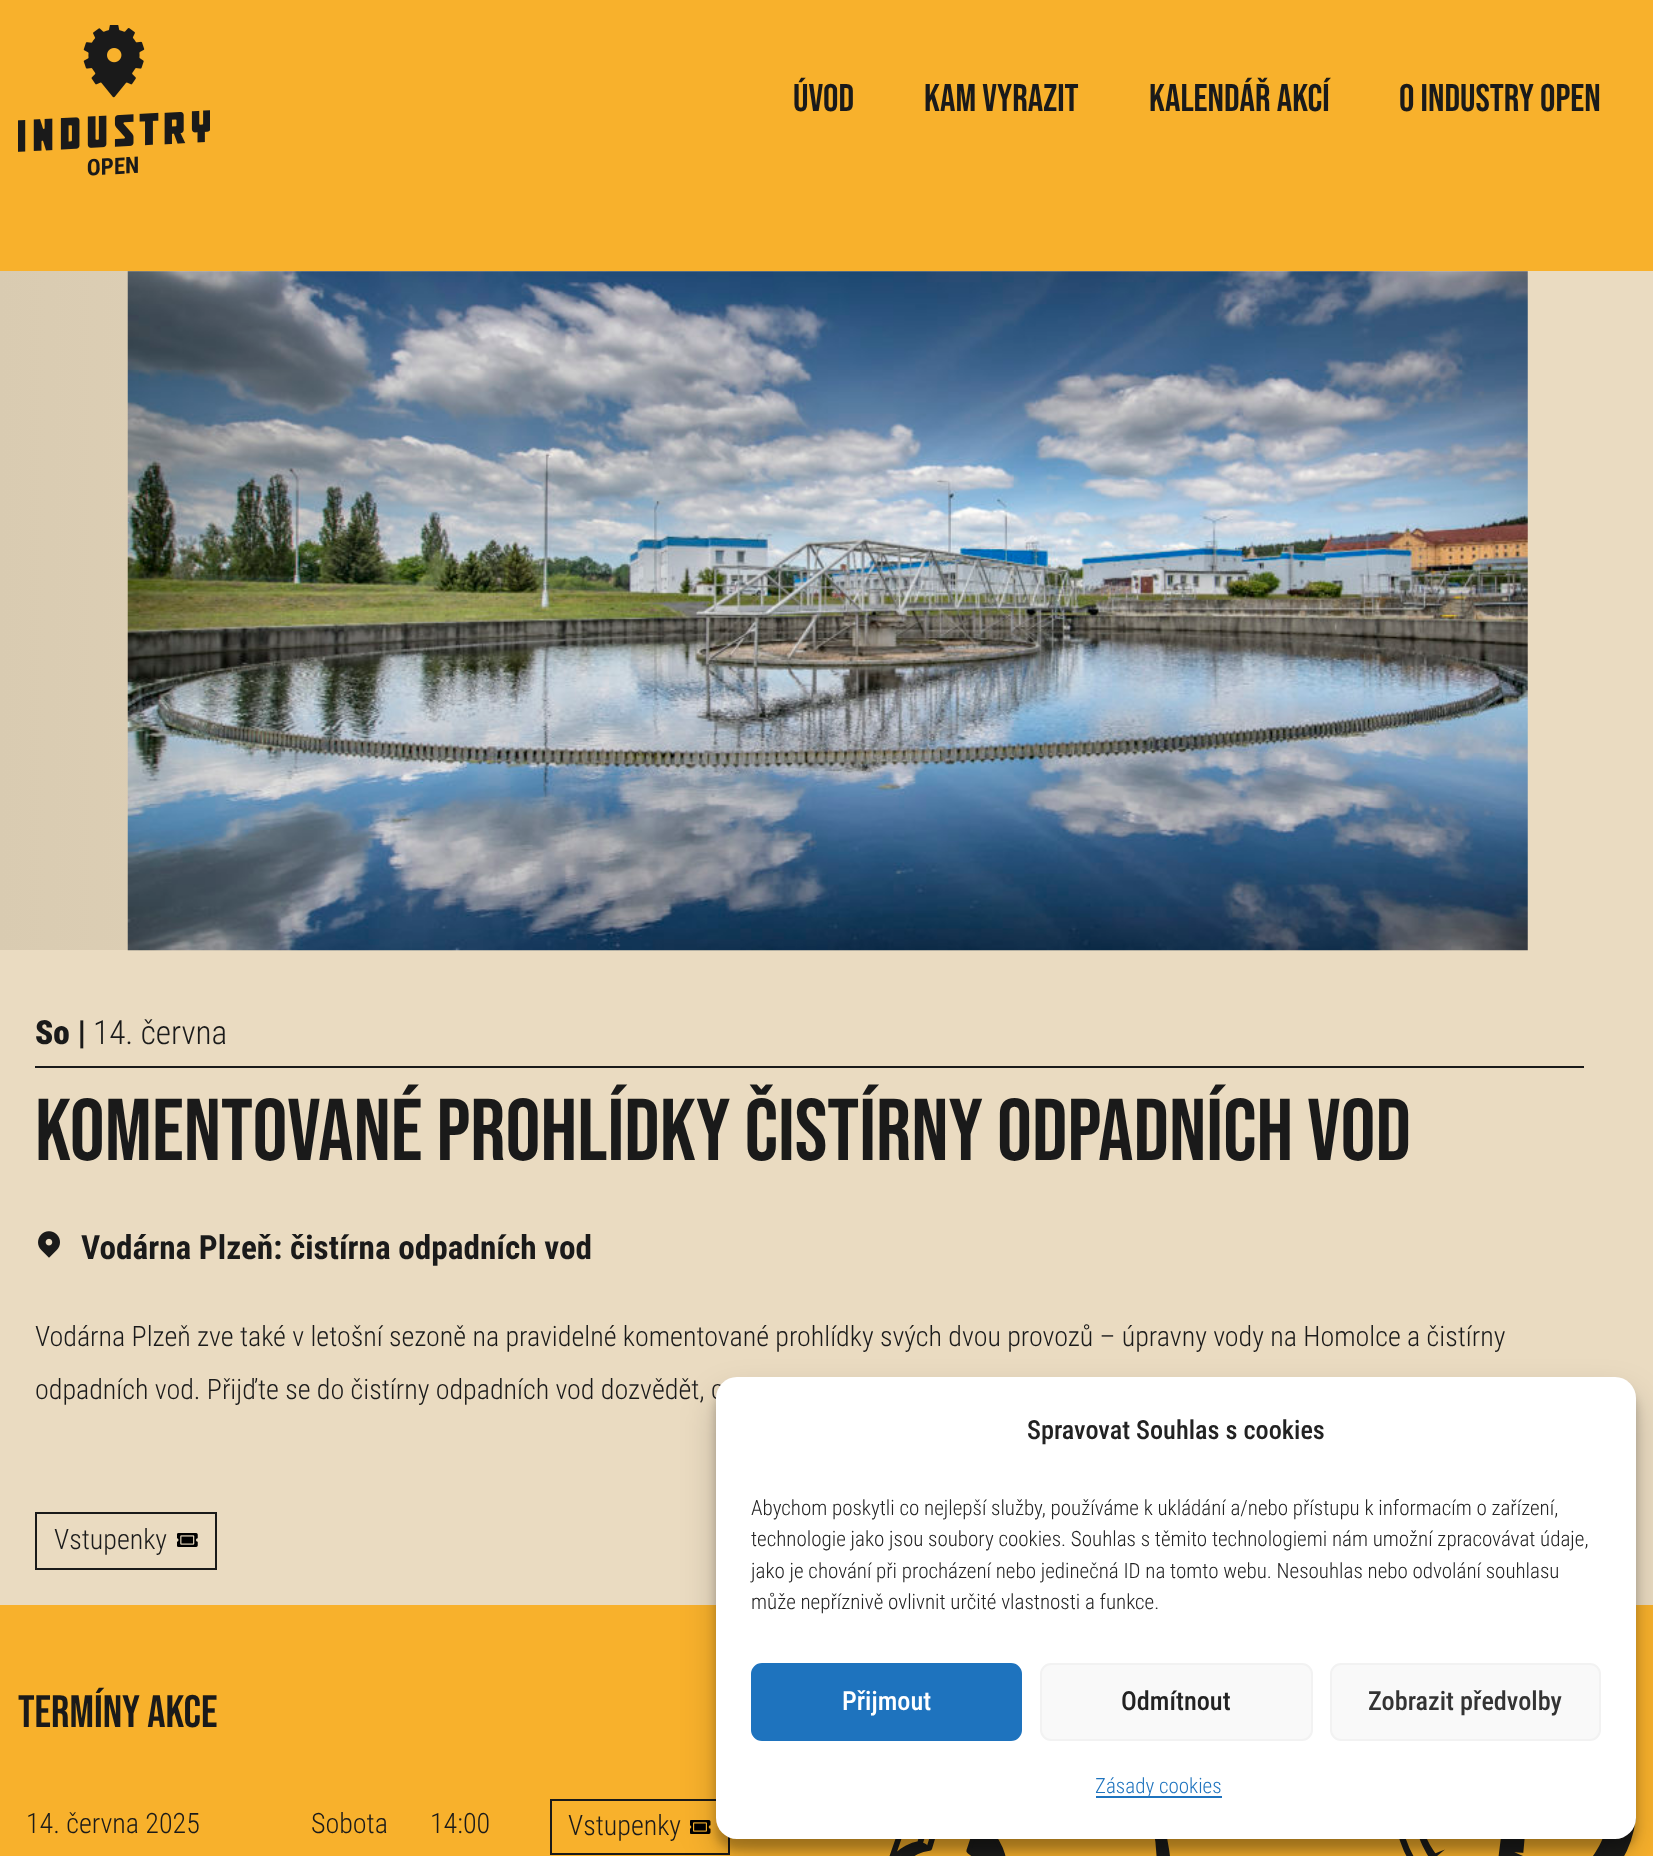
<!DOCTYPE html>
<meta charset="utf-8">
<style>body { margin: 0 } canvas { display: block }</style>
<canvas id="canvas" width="1653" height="1856"></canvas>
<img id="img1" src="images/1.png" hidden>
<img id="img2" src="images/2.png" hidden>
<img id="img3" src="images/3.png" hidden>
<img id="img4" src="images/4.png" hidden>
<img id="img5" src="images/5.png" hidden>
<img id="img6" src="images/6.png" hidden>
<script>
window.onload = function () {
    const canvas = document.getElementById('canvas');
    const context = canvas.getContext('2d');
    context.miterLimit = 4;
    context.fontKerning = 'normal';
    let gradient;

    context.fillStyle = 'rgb(248, 177, 44)';
    context.fillRect(0, 0, 1653, 1856);
    context.drawImage(document.getElementById('img1'), 18, 25, 192, 151);
    context.fillStyle = 'rgb(234, 219, 193)';
    context.fillRect(0, 950, 1653, 655);
    gradient = context.createLinearGradient(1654, 611, 0, 611);
    gradient.addColorStop(0.52, 'rgb(234, 219, 193)');
    gradient.addColorStop(1, 'rgb(217, 203, 177)');
    context.fillStyle = gradient;
    context.fillRect(0, 271, 1653, 679);
    context.drawImage(document.getElementById('img2'), 127, 271, 1401, 680);
    context.fillStyle = 'rgb(26, 26, 26)';
    context.fillRect(35, 1066, 1549, 2);
    context.drawImage(document.getElementById('img3'), 38, 1231, 22, 27);
    context.strokeStyle = 'rgb(26, 26, 26)';
    context.lineWidth = 2;
    context.strokeRect(36, 1513, 180, 56);
    context.drawImage(document.getElementById('img4'), 177, 1533, 21, 14);
    context.strokeRect(551, 1800, 178, 54);
    context.drawImage(document.getElementById('img5'), 690, 1820, 21, 14);
    context.drawImage(document.getElementById('img6'), 889, 1818, 747, 38);
    context.fillStyle = 'rgba(0, 0, 0, 0.23)';
    context.filter = 'blur(5px)';
    context.beginPath();
    context.roundRect(716, 1388, 920, 462, 21);
    context.fill();
    context.filter = 'none';
    context.fillStyle = 'rgba(0, 0, 0, 0.19)';
    context.filter = 'blur(17.5px)';
    context.beginPath();
    context.roundRect(716, 1395, 920, 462, 21);
    context.fill();
    context.filter = 'none';
    context.font = '38.5px Bebas Neue';
    context.fillStyle = 'rgb(26, 26, 26)';
    context.fillText('Úvod', 793, 111);
    context.fillText('Kam vyrazit', 924, 111);
    context.fillText('Kalendář akcí', 1149, 111);
    context.fillText('O Industry Open', 1399, 111);
    context.font = '900 33.25px Roboto Condensed';
    context.fillText('So |', 35, 1044);
    context.font = '300 33.25px Roboto Condensed';
    context.fillText('14. června', 93, 1044);
    context.font = '87.5px Bebas Neue';
    context.fillText('Komentované prohlídky čistírny odpadních vod', 35, 1160);
    context.font = 'bold 33.25px Roboto Condensed';
    context.fillText('Vodárna Plzeň: čistírna odpadních vod', 81, 1259);
    context.font = '300 28px Roboto Condensed';
    context.fillText('Vodárna Plzeň zve také v letošní sezoně na pravidelné komentované prohlídky svých dvou provozů – úpravny vody na Homolce a čistírny', 35, 1346);
    context.fillText('odpadních vod. Přijďte se do čistírny odpadních vod dozvědět, c', 35, 1399);
    context.fillText('Vstupenky', 54, 1549);
    context.font = '45.5px Bebas Neue';
    context.fillText('Termíny akce', 18, 1727);
    context.font = '300 28px Roboto Condensed';
    context.fillText('14. června 2025', 26, 1833);
    context.fillText('Sobota', 311, 1833);
    context.fillText('14:00', 430, 1833);
    context.fillText('Vstupenky', 568, 1835);
    context.fillStyle = 'rgb(255, 255, 255)';
    context.beginPath();
    context.roundRect(716, 1377, 920, 462, 21);
    context.fill();
    context.font = '500 26.25px Roboto Condensed';
    context.fillStyle = 'rgb(34, 34, 34)';
    context.fillText('Spravovat Souhlas s cookies', 1027, 1439);
    context.font = '300 21px Roboto Condensed';
    context.fillText('Abychom poskytli co nejlepší služby, používáme k ukládání a/nebo přístupu k informacím o zařízení,', 751, 1515);
    context.fillText('technologie jako jsou soubory cookies. Souhlas s těmito technologiemi nám umožní zpracovávat údaje,', 751, 1546);
    context.fillText('jako je chování při procházení nebo jedinečná ID na tomto webu. Nesouhlas nebo odvolání souhlasu', 751, 1578);
    context.fillText('může nepříznivě ovlivnit určité vlastnosti a funkce.', 751, 1609);
    context.fillStyle = 'rgb(30, 115, 190)';
    context.beginPath();
    context.roundRect(752, 1664, 269, 76, 10);
    context.fill();
    context.strokeStyle = 'rgb(30, 115, 190)';
    context.stroke();
    context.font = '500 26.25px Roboto Condensed';
    context.fillStyle = 'rgb(255, 255, 255)';
    context.fillText('Přijmout', 842, 1710);
    context.fillStyle = 'rgb(249, 249, 249)';
    context.beginPath();
    context.roundRect(1041, 1664, 271, 76, 10);
    context.fill();
    context.strokeStyle = 'rgb(242, 242, 242)';
    context.stroke();
    context.fillStyle = 'rgb(34, 34, 34)';
    context.fillText('Odmítnout', 1121, 1710);
    context.fillStyle = 'rgb(249, 249, 249)';
    context.beginPath();
    context.roundRect(1331, 1664, 269, 76, 10);
    context.fill();
    context.stroke();
    context.fillStyle = 'rgb(51, 51, 51)';
    context.fillText('Zobrazit předvolby', 1368, 1710);
    context.fillStyle = 'rgb(30, 115, 190)';
    context.fillRect(1096, 1796, 126, 2);
    context.font = '300 21px Roboto Condensed';
    context.fillText('Zásady cookies', 1095, 1793);
};
</script>
